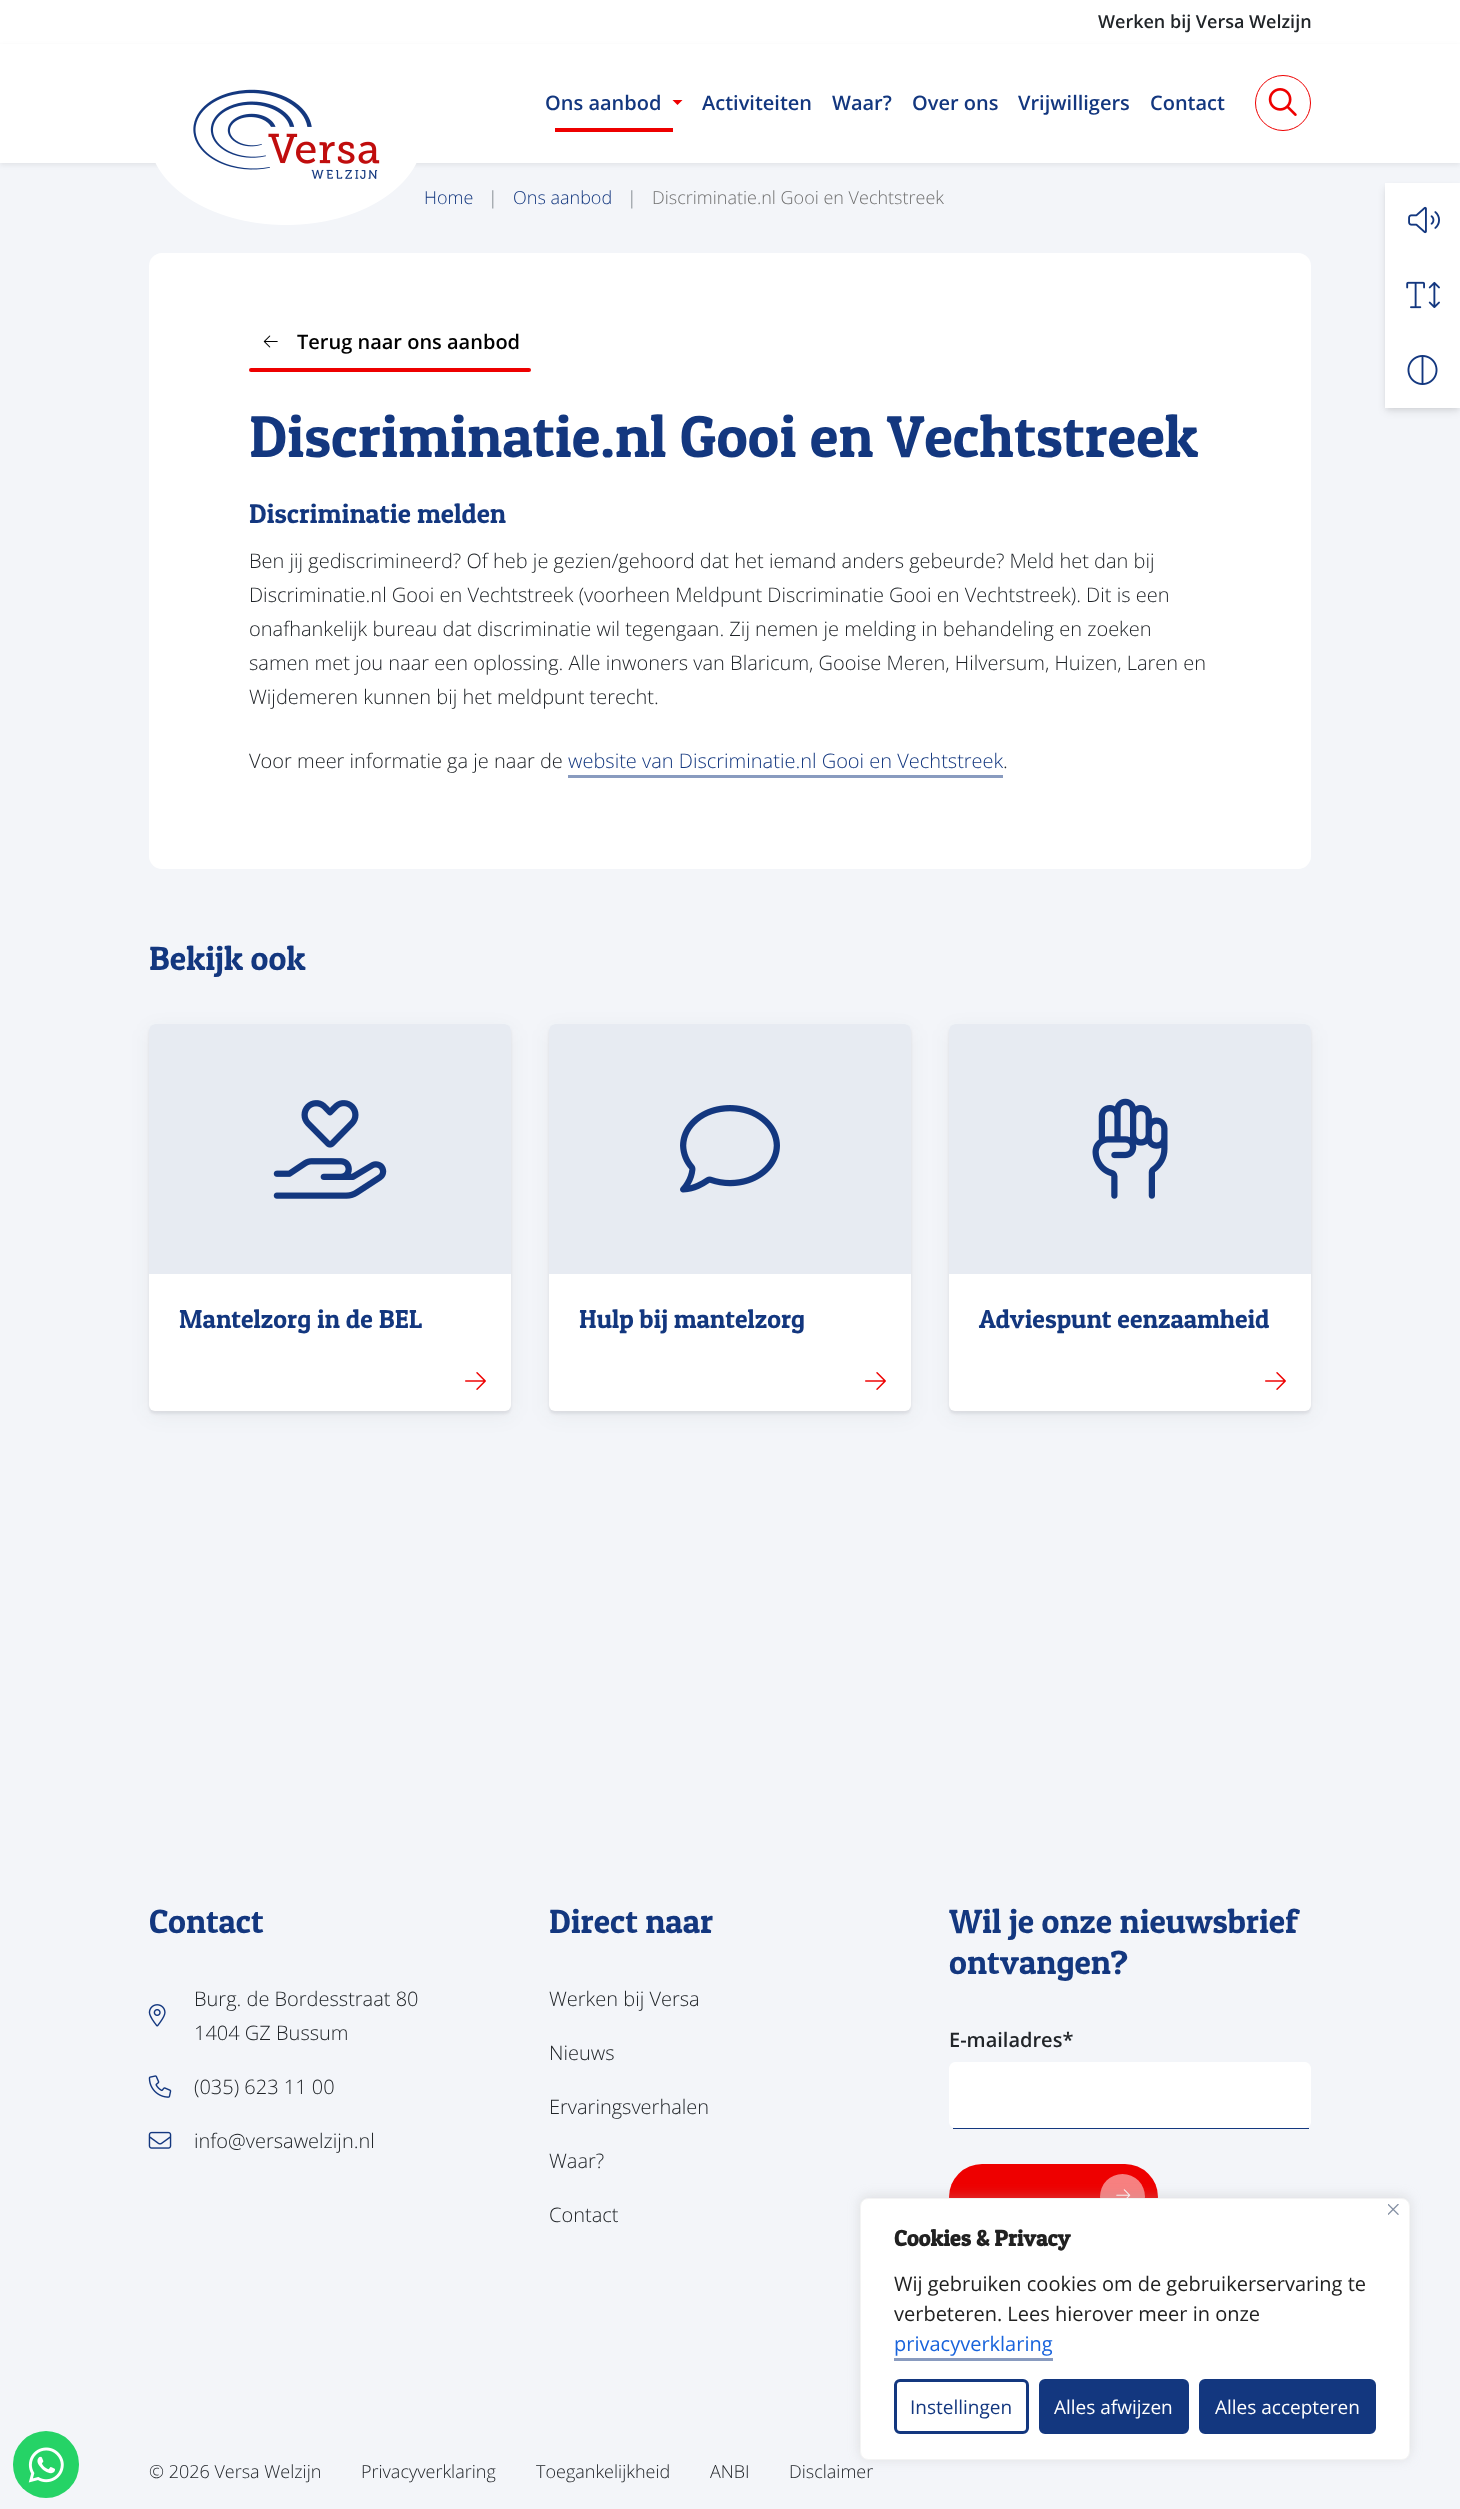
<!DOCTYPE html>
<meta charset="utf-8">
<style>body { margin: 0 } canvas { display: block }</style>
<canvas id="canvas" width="1460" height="2509"></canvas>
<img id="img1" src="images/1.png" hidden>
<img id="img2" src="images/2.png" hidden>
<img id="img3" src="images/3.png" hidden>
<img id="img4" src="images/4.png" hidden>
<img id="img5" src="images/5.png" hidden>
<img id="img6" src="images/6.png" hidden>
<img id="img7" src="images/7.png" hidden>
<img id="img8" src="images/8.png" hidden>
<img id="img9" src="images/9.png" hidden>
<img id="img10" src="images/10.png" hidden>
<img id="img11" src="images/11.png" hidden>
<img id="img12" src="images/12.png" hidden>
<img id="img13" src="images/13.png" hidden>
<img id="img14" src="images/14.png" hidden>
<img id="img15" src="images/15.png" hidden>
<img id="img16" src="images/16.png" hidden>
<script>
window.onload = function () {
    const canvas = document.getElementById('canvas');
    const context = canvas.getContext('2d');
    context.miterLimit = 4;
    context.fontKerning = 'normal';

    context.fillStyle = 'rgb(243, 245, 249)';
    context.fillRect(0, 0, 1460, 2509);
    context.fillStyle = 'rgb(255, 255, 255)';
    context.fillRect(0, 0, 1460, 44);
    context.fillStyle = 'rgba(0, 0, 0, 0.07)';
    context.filter = 'blur(2.5px)';
    context.beginPath();
    context.rect(0, 46, 1460, 119);
    context.fill();
    context.filter = 'none';
    context.fillStyle = 'rgb(255, 255, 255)';
    context.fillRect(0, 44, 1460, 119);
    context.drawImage(document.getElementById('img1'), 155, 89, 262, 136);
    context.fillStyle = 'rgb(238, 0, 0)';
    context.beginPath();
    context.moveTo(672.5, 100);
    context.lineTo(682.5, 100);
    context.lineTo(677.5, 105);
    context.closePath();
    context.fill();
    context.fillRect(555, 128, 118, 4);
    context.beginPath();
    context.arc(1283, 103, 27.5, 0, 2 * Math.PI);
    context.strokeStyle = 'rgb(238, 0, 0)';
    context.stroke();
    context.drawImage(document.getElementById('img2'), 1268, 88, 29, 28);
    context.fillStyle = 'rgb(255, 255, 255)';
    context.beginPath();
    context.roundRect(149, 253, 1162, 616, 13);
    context.fill();
    context.drawImage(document.getElementById('img3'), 263, 335, 15, 13);
    context.fillStyle = 'rgb(238, 0, 0)';
    context.beginPath();
    context.roundRect(249, 368, 282, 4, 2);
    context.fill();
    context.fillStyle = 'rgb(137, 155, 191)';
    context.fillRect(568, 775, 435, 3);
    context.fillStyle = 'rgba(40, 44, 53, 0.08)';
    context.filter = 'blur(1px)';
    context.beginPath();
    context.roundRect(149, 1026, 362, 388, 6);
    context.fill();
    context.filter = 'none';
    context.fillStyle = 'rgba(40, 44, 53, 0.06)';
    context.filter = 'blur(9.5px)';
    context.beginPath();
    context.roundRect(149, 1029, 362, 387, 6);
    context.fill();
    context.filter = 'none';
    context.fillStyle = 'rgb(255, 255, 255)';
    context.beginPath();
    context.roundRect(149, 1024, 362, 387, 6);
    context.fill();
    context.fillStyle = 'rgb(231, 235, 242)';
    context.beginPath();
    context.roundRect(149, 1024, 362, 250, [6, 6, 0, 0]);
    context.fill();
    context.drawImage(document.getElementById('img4'), 273, 1100, 114, 99);
    context.drawImage(document.getElementById('img5'), 465, 1372, 21, 18);
    context.fillStyle = 'rgba(40, 44, 53, 0.08)';
    context.filter = 'blur(1px)';
    context.beginPath();
    context.roundRect(549, 1026, 362, 388, 6);
    context.fill();
    context.filter = 'none';
    context.fillStyle = 'rgba(40, 44, 53, 0.06)';
    context.filter = 'blur(9.5px)';
    context.beginPath();
    context.roundRect(549, 1029, 362, 387, 6);
    context.fill();
    context.filter = 'none';
    context.fillStyle = 'rgb(255, 255, 255)';
    context.beginPath();
    context.roundRect(549, 1024, 362, 387, 6);
    context.fill();
    context.fillStyle = 'rgb(231, 235, 242)';
    context.beginPath();
    context.roundRect(549, 1024, 362, 250, [6, 6, 0, 0]);
    context.fill();
    context.drawImage(document.getElementById('img6'), 680, 1105, 100, 88);
    context.drawImage(document.getElementById('img5'), 865, 1372, 21, 18);
    context.fillStyle = 'rgba(40, 44, 53, 0.08)';
    context.filter = 'blur(1px)';
    context.beginPath();
    context.roundRect(949, 1026, 362, 388, 6);
    context.fill();
    context.filter = 'none';
    context.fillStyle = 'rgba(40, 44, 53, 0.06)';
    context.filter = 'blur(9.5px)';
    context.beginPath();
    context.roundRect(949, 1029, 362, 387, 6);
    context.fill();
    context.filter = 'none';
    context.fillStyle = 'rgb(255, 255, 255)';
    context.beginPath();
    context.roundRect(949, 1024, 362, 387, 6);
    context.fill();
    context.fillStyle = 'rgb(231, 235, 242)';
    context.beginPath();
    context.roundRect(949, 1024, 362, 250, [6, 6, 0, 0]);
    context.fill();
    context.drawImage(document.getElementById('img7'), 1092, 1098, 76, 101);
    context.drawImage(document.getElementById('img5'), 1265, 1372, 21, 18);
    context.fillStyle = 'rgba(0, 0, 0, 0.06)';
    context.filter = 'blur(2.5px)';
    context.beginPath();
    context.rect(1386, 186, 73, 223);
    context.fill();
    context.filter = 'none';
    context.fillStyle = 'rgba(0, 0, 0, 0.1)';
    context.filter = 'blur(4px)';
    context.beginPath();
    context.rect(1386, 189, 73, 222);
    context.fill();
    context.filter = 'none';
    context.fillStyle = 'rgb(255, 255, 255)';
    context.fillRect(1385, 183, 75, 225);
    context.drawImage(document.getElementById('img8'), 1408, 206, 32, 28);
    context.drawImage(document.getElementById('img9'), 1406, 281, 34, 28);
    context.drawImage(document.getElementById('img10'), 1407, 355, 31, 30);
    context.drawImage(document.getElementById('img11'), 148, 2004, 18, 23);
    context.drawImage(document.getElementById('img12'), 148, 2075, 24, 23);
    context.drawImage(document.getElementById('img13'), 148, 2131, 24, 18);
    context.beginPath();
    context.moveTo(955, 2062);
    context.lineTo(1305, 2062);
    context.bezierCurveTo(1308, 2062, 1311, 2065, 1311, 2069);
    context.lineTo(1311, 2122);
    context.bezierCurveTo(1311, 2125, 1308, 2128, 1305, 2128);
    context.lineTo(955, 2128);
    context.bezierCurveTo(952, 2128, 949, 2125, 949, 2122);
    context.lineTo(949, 2069);
    context.bezierCurveTo(949, 2065, 952, 2062, 955, 2062);
    context.closePath();
    context.fill();
    context.fillStyle = 'rgb(19, 55, 127)';
    context.fillRect(953, 2128, 356, 1);
    context.fillStyle = 'rgb(238, 0, 0)';
    context.beginPath();
    context.roundRect(949, 2164, 209, 66, 33);
    context.fill();
    context.fillStyle = 'rgb(247, 128, 128)';
    context.beginPath();
    context.arc(1122.5, 2196.5, 22.5, 0, 2 * Math.PI);
    context.fill();
    context.drawImage(document.getElementById('img14'), 1116, 2189, 15, 9);
    context.fillStyle = 'rgba(172, 171, 171, 0.3)';
    context.filter = 'blur(6px)';
    context.beginPath();
    context.roundRect(860, 2196, 550, 263, 8);
    context.fill();
    context.filter = 'none';
    context.fillStyle = 'rgb(255, 255, 255)';
    context.beginPath();
    context.roundRect(860.5, 2198.5, 549, 261, 7.5);
    context.fill();
    context.strokeStyle = 'rgb(244, 244, 244)';
    context.stroke();
    context.drawImage(document.getElementById('img15'), 1388, 2204, 11, 11);
    context.fillStyle = 'rgb(137, 155, 191)';
    context.fillRect(894, 2358, 159, 3);
    context.beginPath();
    context.roundRect(895.5, 2380.5, 132, 52, 4.5);
    context.strokeStyle = 'rgb(19, 55, 127)';
    context.lineWidth = 3;
    context.stroke();
    context.fillStyle = 'rgb(19, 55, 127)';
    context.beginPath();
    context.roundRect(1040.5, 2380.5, 147, 52, 4.5);
    context.fill();
    context.stroke();
    context.beginPath();
    context.roundRect(1200.5, 2380.5, 174, 52, 4.5);
    context.fill();
    context.stroke();
    context.fillStyle = 'rgb(37, 211, 102)';
    context.beginPath();
    context.roundRect(13, 2431, 66, 67, 33);
    context.fill();
    context.drawImage(document.getElementById('img16'), 28, 2447, 36, 36);
    context.font = '600 18px Open Sans';
    context.fillStyle = 'rgb(33, 37, 41)';
    context.fillText('Werken bij Versa Welzijn', 1098, 28);
    context.font = '600 20px Open Sans';
    context.fillStyle = 'rgb(19, 55, 127)';
    context.fillText('Ons aanbod', 545, 110);
    context.fillText('Activiteiten', 702, 110);
    context.fillText('Waar?', 832, 110);
    context.fillText('Over ons', 912, 110);
    context.fillText('Vrijwilligers', 1018, 110);
    context.fillText('Contact', 1150, 110);
    context.font = '300 18px Open Sans';
    context.fillText('Home', 424, 204);
    context.fillStyle = 'rgb(108, 117, 125)';
    context.fillText('|', 488, 204);
    context.fillStyle = 'rgb(19, 55, 127)';
    context.fillText('Ons aanbod', 513, 204);
    context.fillStyle = 'rgb(108, 117, 125)';
    context.fillText('|', 627, 204);
    context.fillStyle = 'rgb(112, 112, 112)';
    context.fillText('Discriminatie.nl Gooi en Vechtstreek', 652, 204);
    context.font = '600 20px Open Sans';
    context.fillStyle = 'rgb(0, 0, 0)';
    context.fillText('Terug naar ons aanbod', 297, 349);
    context.font = '59.2px Patua One';
    context.fillStyle = 'rgb(19, 55, 127)';
    context.fillText('Discriminatie.nl Gooi en Vechtstreek', 249, 457);
    context.font = '27.25px Patua One';
    context.fillText('Discriminatie melden', 249, 523);
    context.font = '300 20px Open Sans';
    context.fillStyle = 'rgb(33, 37, 41)';
    context.fillText('Ben jij gediscrimineerd? Of heb je gezien/gehoord dat het iemand anders gebeurde? Meld het dan bij', 249, 568);
    context.fillText('Discriminatie.nl Gooi en Vechtstreek (voorheen Meldpunt Discriminatie Gooi en Vechtstreek). Dit is een', 249, 602);
    context.fillText('onafhankelijk bureau dat discriminatie wil tegengaan. Zij nemen je melding in behandeling en zoeken', 249, 636);
    context.fillText('samen met jou naar een oplossing. Alle inwoners van Blaricum, Gooise Meren, Hilversum, Huizen, Laren en', 249, 670);
    context.fillText('Wijdemeren kunnen bij het meldpunt terecht.', 249, 704);
    context.fillText('Voor meer informatie ga je naar de', 249, 768);
    context.fillStyle = 'rgb(19, 55, 127)';
    context.fillText('website van Discriminatie.nl Gooi en Vechtstreek', 568, 768);
    context.fillStyle = 'rgb(33, 37, 41)';
    context.fillText('.', 1003, 768);
    context.font = '33.75px Patua One';
    context.fillStyle = 'rgb(19, 55, 127)';
    context.fillText('Bekijk ook', 149, 970);
    context.font = '26px Patua One';
    context.fillText('Mantelzorg in de BEL', 179, 1328);
    context.fillText('Hulp bij mantelzorg', 579, 1328);
    context.fillText('Adviespunt eenzaamheid', 979, 1328);
    context.font = '33.75px Patua One';
    context.fillText('Contact', 149, 1933);
    context.font = '300 20px Open Sans';
    context.fillStyle = 'rgb(33, 37, 41)';
    context.fillText('Burg. de Bordesstraat 80', 194, 2006);
    context.fillText('1404 GZ Bussum', 194, 2040);
    context.fillText('(035) 623 11 00', 194, 2094);
    context.fillText('info@versawelzijn.nl', 194, 2148);
    context.font = '33.75px Patua One';
    context.fillStyle = 'rgb(19, 55, 127)';
    context.fillText('Direct naar', 549, 1933);
    context.font = '300 20px Open Sans';
    context.fillStyle = 'rgb(33, 37, 41)';
    context.fillText('Werken bij Versa', 549, 2006);
    context.fillText('Nieuws', 549, 2060);
    context.fillText('Ervaringsverhalen', 549, 2114);
    context.fillText('Waar?', 549, 2168);
    context.fillText('Contact', 549, 2222);
    context.font = '33.75px Patua One';
    context.fillStyle = 'rgb(19, 55, 127)';
    context.fillText('Wil je onze nieuwsbrief', 949, 1933);
    context.fillText('ontvangen?', 949, 1974);
    context.font = '600 20px Open Sans';
    context.fillStyle = 'rgb(33, 37, 41)';
    context.fillText('E-mailadres*', 949, 2047);
    context.font = '300 18px Open Sans';
    context.fillText('© 2026 Versa Welzijn', 149, 2478);
    context.fillText('Privacyverklaring', 361, 2478);
    context.fillText('Toegankelijkheid', 536, 2478);
    context.fillText('ANBI', 710, 2478);
    context.fillText('Disclaimer', 789, 2478);
    context.font = 'bold 22.5px Patua One';
    context.fillStyle = 'rgb(33, 33, 33)';
    context.fillText('Cookies & Privacy', 894, 2246);
    context.font = '20px Open Sans';
    context.fillText('Wij gebruiken cookies om de gebruikerservaring te', 894, 2291);
    context.fillText('verbeteren. Lees hierover meer in onze', 894, 2321);
    context.fillStyle = 'rgb(24, 99, 220)';
    context.fillText('privacyverklaring', 894, 2351);
    context.font = '19px Open Sans';
    context.fillStyle = 'rgb(19, 55, 127)';
    context.fillText('Instellingen', 910, 2414);
    context.fillStyle = 'rgb(255, 255, 255)';
    context.fillText('Alles afwijzen', 1054, 2414);
    context.fillText('Alles accepteren', 1215, 2414);
};
</script>
